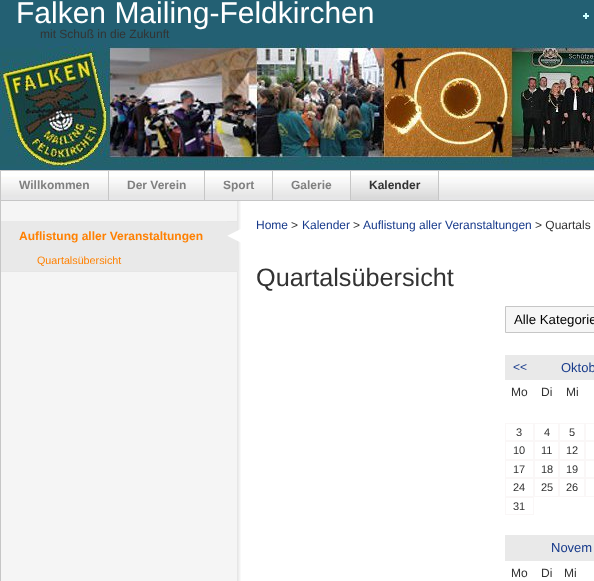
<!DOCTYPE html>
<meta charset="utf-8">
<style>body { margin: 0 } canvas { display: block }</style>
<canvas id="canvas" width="594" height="581"></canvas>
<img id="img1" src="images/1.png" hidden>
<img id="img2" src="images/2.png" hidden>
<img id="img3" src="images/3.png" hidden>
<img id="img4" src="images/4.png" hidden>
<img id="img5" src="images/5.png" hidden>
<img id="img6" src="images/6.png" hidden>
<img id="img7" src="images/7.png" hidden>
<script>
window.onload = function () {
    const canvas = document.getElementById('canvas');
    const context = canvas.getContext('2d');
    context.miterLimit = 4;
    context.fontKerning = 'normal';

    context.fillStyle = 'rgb(198, 198, 198)';
    context.fillRect(0, 0, 594, 581);
    context.drawImage(document.getElementById('img1'), 0, 0, 594, 170);
    context.drawImage(document.getElementById('img2'), 583, 13, 6, 6);
    context.drawImage(document.getElementById('img3'), 1, 171, 593, 29);
    context.fillRect(108, 171, 1, 29);
    context.fillRect(204, 171, 1, 29);
    context.fillRect(272, 171, 1, 29);
    context.fillRect(350, 171, 1, 29);
    context.drawImage(document.getElementById('img4'), 351, 175, 87, 25);
    context.fillRect(438, 171, 1, 29);
    context.fillStyle = 'rgb(255, 255, 255)';
    context.fillRect(241, 201, 353, 380);
    context.drawImage(document.getElementById('img5'), 1, 201, 240, 380);
    context.fillStyle = 'rgb(230, 230, 230)';
    context.fillRect(1, 271, 236, 1);
    context.fillStyle = 'rgb(233, 233, 233)';
    context.fillRect(1, 221, 226, 29);
    context.drawImage(document.getElementById('img6'), 227, 221, 14, 29);
    context.fillRect(1, 250, 238, 21);
    context.drawImage(document.getElementById('img7'), 239, 250, 2, 21);
    context.fillStyle = 'rgb(246, 246, 246)';
    context.beginPath();
    context.rect(505.5, 306.5, 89, 26);
    context.fill();
    context.strokeStyle = 'rgb(198, 198, 198)';
    context.stroke();
    context.fillStyle = 'rgb(233, 233, 233)';
    context.fillRect(505, 355, 89, 25);
    context.strokeStyle = 'rgb(250, 247, 247)';
    context.strokeRect(505.5, 423.5, 28, 17);
    context.strokeRect(534.5, 423.5, 24, 17);
    context.strokeRect(559.5, 423.5, 25, 17);
    context.strokeRect(585.5, 423.5, 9, 17);
    context.strokeRect(505.5, 441.5, 28, 18);
    context.strokeRect(534.5, 441.5, 24, 18);
    context.strokeRect(559.5, 441.5, 25, 18);
    context.strokeRect(585.5, 441.5, 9, 18);
    context.strokeRect(505.5, 460.5, 28, 17);
    context.strokeRect(534.5, 460.5, 24, 17);
    context.strokeRect(559.5, 460.5, 25, 17);
    context.strokeRect(585.5, 460.5, 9, 17);
    context.strokeRect(505.5, 478.5, 28, 18);
    context.strokeRect(534.5, 478.5, 24, 18);
    context.strokeRect(559.5, 478.5, 25, 18);
    context.strokeRect(585.5, 478.5, 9, 18);
    context.strokeRect(505.5, 497.5, 28, 17);
    context.fillRect(505, 535, 89, 26);
    context.font = '30px Liberation Sans';
    context.fillStyle = 'rgb(255, 255, 255)';
    context.fillText('Falken Mailing-Feldkirchen', 16, 23);
    context.font = '12px Liberation Sans';
    context.fillStyle = 'rgb(51, 51, 51)';
    context.fillText('mit Schuß in die Zukunft', 40, 38);
    context.font = 'bold 12px Liberation Sans';
    context.fillStyle = 'rgb(128, 128, 128)';
    context.fillText('Willkommen', 19, 189);
    context.fillText('Der Verein', 127, 189);
    context.fillText('Sport', 223, 189);
    context.fillText('Galerie', 291, 189);
    context.fillStyle = 'rgb(51, 51, 51)';
    context.fillText('Kalender', 369, 189);
    context.fillStyle = 'rgb(255, 128, 0)';
    context.fillText('Auflistung aller Veranstaltungen', 19, 240);
    context.font = '10.75px Liberation Sans';
    context.fillText('Quartalsübersicht', 37, 264);
    context.font = '12px Liberation Sans';
    context.fillStyle = 'rgb(23, 58, 139)';
    context.fillText('Home', 256, 229);
    context.fillStyle = 'rgb(51, 51, 51)';
    context.fillText('>', 291, 229);
    context.fillStyle = 'rgb(23, 58, 139)';
    context.fillText('Kalender', 302, 229);
    context.fillStyle = 'rgb(51, 51, 51)';
    context.fillText('>', 353, 229);
    context.fillStyle = 'rgb(23, 58, 139)';
    context.fillText('Auflistung aller Veranstaltungen', 363, 229);
    context.fillStyle = 'rgb(51, 51, 51)';
    context.fillText('> Quartals', 535, 229);
    context.font = '25.25px Liberation Sans';
    context.fillText('Quartalsübersicht', 256, 286);
    context.font = '13.25px Liberation Sans';
    context.fillStyle = 'rgb(0, 0, 0)';
    context.fillText('Alle Kategorie', 514, 324);
    context.font = '12px Liberation Sans';
    context.fillStyle = 'rgb(23, 58, 139)';
    context.fillText('<<', 513, 371);
    context.font = '13px Liberation Sans';
    context.fillText('Oktob', 561, 372);
    context.font = '12px Liberation Sans';
    context.fillStyle = 'rgb(51, 51, 51)';
    context.fillText('Mo', 511, 396);
    context.fillText('Di', 541, 396);
    context.fillText('Mi', 566, 396);
    context.font = '11px Liberation Sans';
    context.fillText('3', 516, 436);
    context.fillText('4', 544, 436);
    context.fillText('5', 569, 436);
    context.fillText('10', 513, 454);
    context.fillText('11', 541, 454);
    context.fillText('12', 566, 454);
    context.fillText('17', 513, 473);
    context.fillText('18', 541, 473);
    context.fillText('19', 566, 473);
    context.fillText('24', 513, 491);
    context.fillText('25', 541, 491);
    context.fillText('26', 566, 491);
    context.fillText('31', 513, 510);
    context.font = '13px Liberation Sans';
    context.fillStyle = 'rgb(23, 58, 139)';
    context.fillText('Novem', 551, 552);
    context.font = '12px Liberation Sans';
    context.fillStyle = 'rgb(51, 51, 51)';
    context.fillText('Mo', 511, 577);
    context.fillText('Di', 541, 577);
    context.fillText('Mi', 564, 577);
};
</script>
